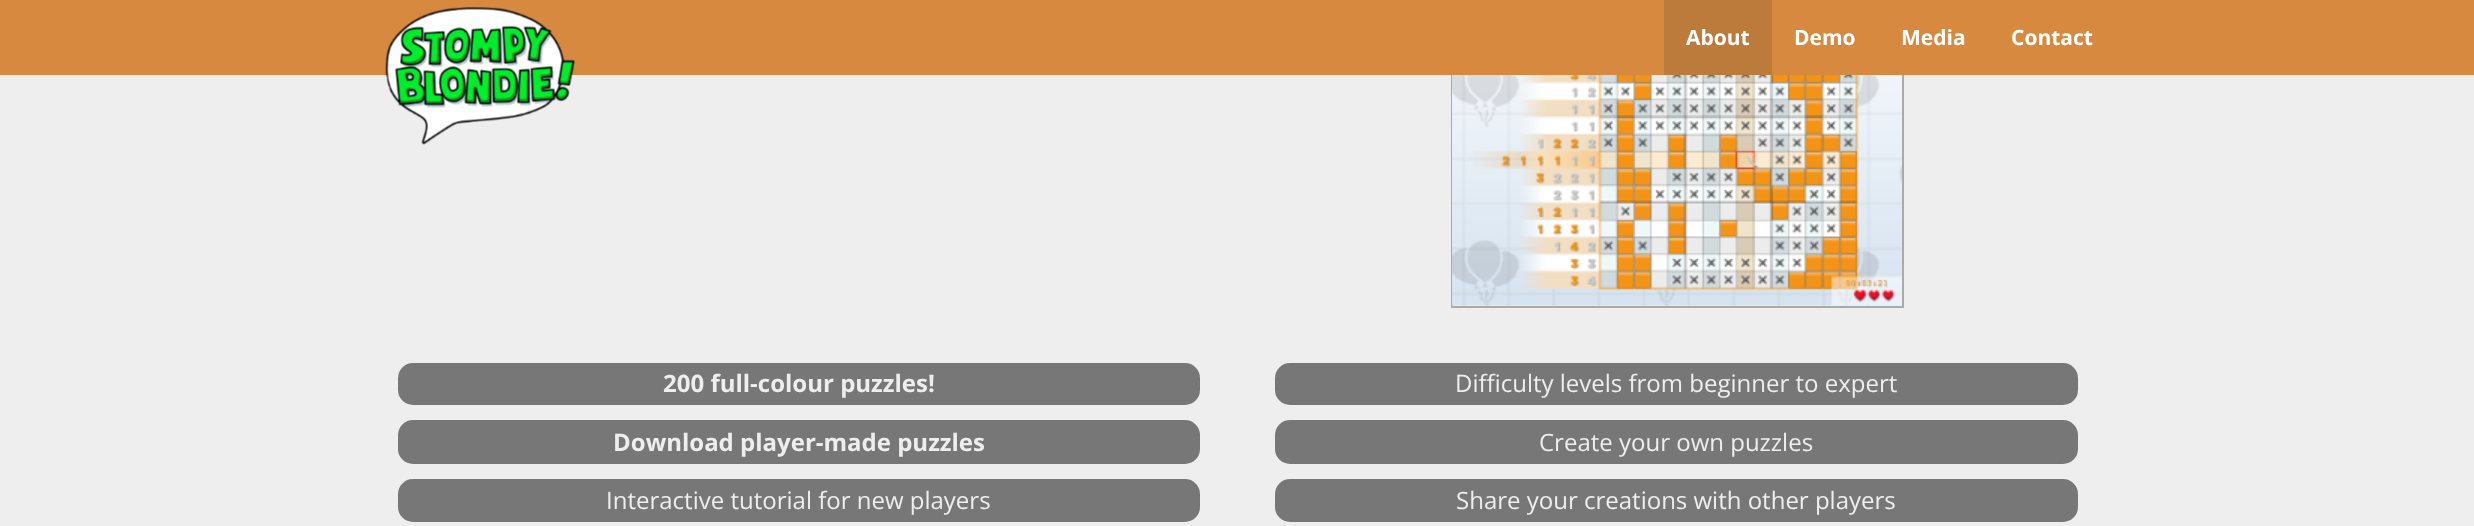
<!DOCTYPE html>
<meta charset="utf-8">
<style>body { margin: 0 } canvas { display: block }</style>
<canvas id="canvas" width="2474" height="526"></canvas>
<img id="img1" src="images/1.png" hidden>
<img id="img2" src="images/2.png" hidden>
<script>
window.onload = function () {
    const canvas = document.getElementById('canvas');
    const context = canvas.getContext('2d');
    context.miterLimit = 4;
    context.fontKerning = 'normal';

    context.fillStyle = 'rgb(238, 238, 238)';
    context.fillRect(0, 0, 2474, 526);
    context.strokeStyle = 'rgb(170, 170, 170)';
    context.lineWidth = 2;
    context.strokeRect(1452, -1, 451, 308);
    context.fillStyle = 'rgb(215, 137, 63)';
    context.fillRect(0, 0, 2474, 75);
    context.drawImage(document.getElementById('img1'), 385, 7, 190, 138);
    context.fillStyle = 'rgb(189, 123, 59)';
    context.fillRect(1664, 0, 108, 75);
    context.drawImage(document.getElementById('img2'), 1452, 75, 450, 231);
    context.fillStyle = 'rgb(119, 119, 119)';
    context.beginPath();
    context.roundRect(398, 363, 802, 42, 15);
    context.fill();
    context.beginPath();
    context.roundRect(398, 420, 802, 44, 15);
    context.fill();
    context.beginPath();
    context.roundRect(398, 479, 802, 43, 15);
    context.fill();
    context.beginPath();
    context.roundRect(1275, 363, 803, 42, 15);
    context.fill();
    context.beginPath();
    context.roundRect(1275, 420, 803, 44, 15);
    context.fill();
    context.beginPath();
    context.roundRect(1275, 479, 803, 43, 15);
    context.fill();
    context.font = 'bold 21px Open Sans';
    context.fillStyle = 'rgb(255, 255, 255)';
    context.fillText('About', 1686, 45);
    context.fillText('Demo', 1794, 45);
    context.fillText('Media', 1901, 45);
    context.fillText('Contact', 2011, 45);
    context.font = 'bold 24px Open Sans';
    context.fillStyle = 'rgb(238, 238, 238)';
    context.fillText('200 full-colour puzzles!', 663, 392);
    context.fillText('Download player-made puzzles', 613, 451);
    context.font = '24px Open Sans';
    context.fillText('Interactive tutorial for new players', 606, 509);
    context.fillText('Difficulty levels from beginner to expert', 1455, 392);
    context.fillText('Create your own puzzles', 1539, 451);
    context.fillText('Share your creations with other players', 1456, 509);
};
</script>
